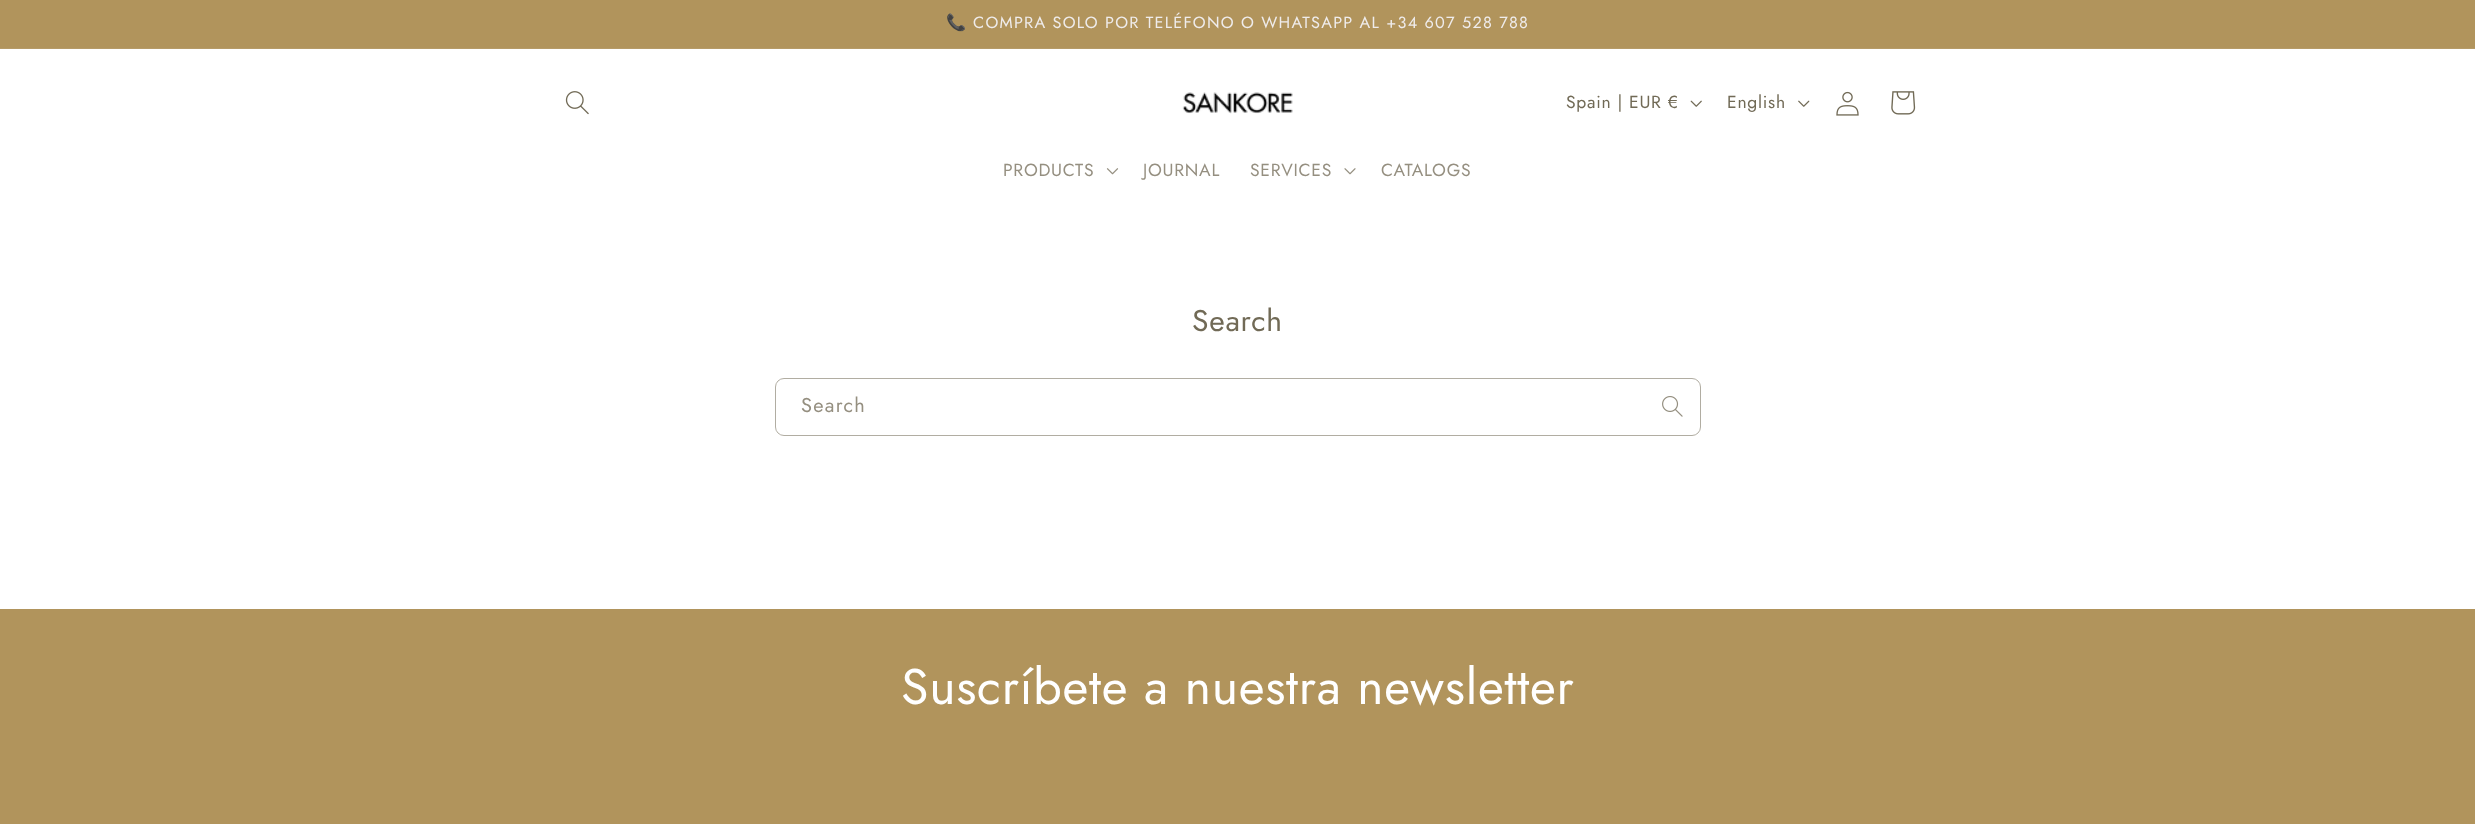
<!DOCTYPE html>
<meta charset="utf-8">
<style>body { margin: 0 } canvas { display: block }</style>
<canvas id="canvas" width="2475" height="824"></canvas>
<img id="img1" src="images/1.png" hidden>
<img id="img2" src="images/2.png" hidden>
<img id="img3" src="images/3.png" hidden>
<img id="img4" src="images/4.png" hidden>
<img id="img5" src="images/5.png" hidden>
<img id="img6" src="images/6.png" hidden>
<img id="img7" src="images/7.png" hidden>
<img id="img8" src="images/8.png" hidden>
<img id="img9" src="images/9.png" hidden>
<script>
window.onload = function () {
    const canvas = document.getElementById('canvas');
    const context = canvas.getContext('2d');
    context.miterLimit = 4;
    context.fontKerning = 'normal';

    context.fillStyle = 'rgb(255, 255, 255)';
    context.fillRect(0, 0, 2475, 824);
    context.fillStyle = 'rgb(177, 148, 92)';
    context.fillRect(0, 0, 2475, 48);
    context.fillStyle = 'rgb(182, 155, 104)';
    context.fillRect(0, 48, 2475, 1);
    context.drawImage(document.getElementById('img1'), 565, 91, 24, 24);
    context.drawImage(document.getElementById('img2'), 1182, 92, 111, 22);
    context.drawImage(document.getElementById('img3'), 1690, 100, 12, 7);
    context.drawImage(document.getElementById('img4'), 1798, 100, 12, 7);
    context.drawImage(document.getElementById('img5'), 1836, 91, 23, 25);
    context.drawImage(document.getElementById('img6'), 1891, 91, 25, 24);
    context.drawImage(document.getElementById('img7'), 1106, 168, 13, 7);
    context.drawImage(document.getElementById('img8'), 1344, 168, 12, 7);
    context.drawImage(document.getElementById('img9'), 1662, 396, 21, 21);
    context.beginPath();
    context.roundRect(775.5, 378.5, 925, 57, 8.5);
    context.strokeStyle = 'rgb(177, 173, 162)';
    context.stroke();
    context.fillStyle = 'rgb(177, 148, 92)';
    context.fillRect(0, 609, 2475, 215);
    context.letterSpacing = '1.25px';
    context.font = '16.25px Noto Color Emoji';
    context.fillStyle = 'rgb(239, 236, 236)';
    context.fillText('📞', 946, 28);
    context.font = '16.25px Jost';
    context.fillText('COMPRA SOLO POR TELÉFONO O WHATSAPP AL +34 607 528 788', 973, 28);
    context.letterSpacing = '0.75px';
    context.font = '17.5px Jost';
    context.fillStyle = 'rgb(113, 106, 86)';
    context.fillText('Spain | EUR €', 1566, 108);
    context.fillText('English', 1727, 108);
    context.fillStyle = 'rgb(149, 143, 128)';
    context.fillText('PRODUCTS', 1003, 176);
    context.fillText('JOURNAL', 1143, 176);
    context.fillText('SERVICES', 1250, 176);
    context.fillText('CATALOGS', 1381, 176);
    context.font = '30px Jost';
    context.fillStyle = 'rgb(113, 106, 86)';
    context.fillText('Search', 1192, 331);
    context.letterSpacing = '1.25px';
    context.font = '20px Jost';
    context.fillStyle = 'rgb(149, 143, 128)';
    context.fillText('Search', 801, 412);
    context.letterSpacing = '0.75px';
    context.font = '50px Jost';
    context.fillStyle = 'rgb(255, 255, 255)';
    context.fillText('Suscríbete a nuestra newsletter', 901, 704);
};
</script>
